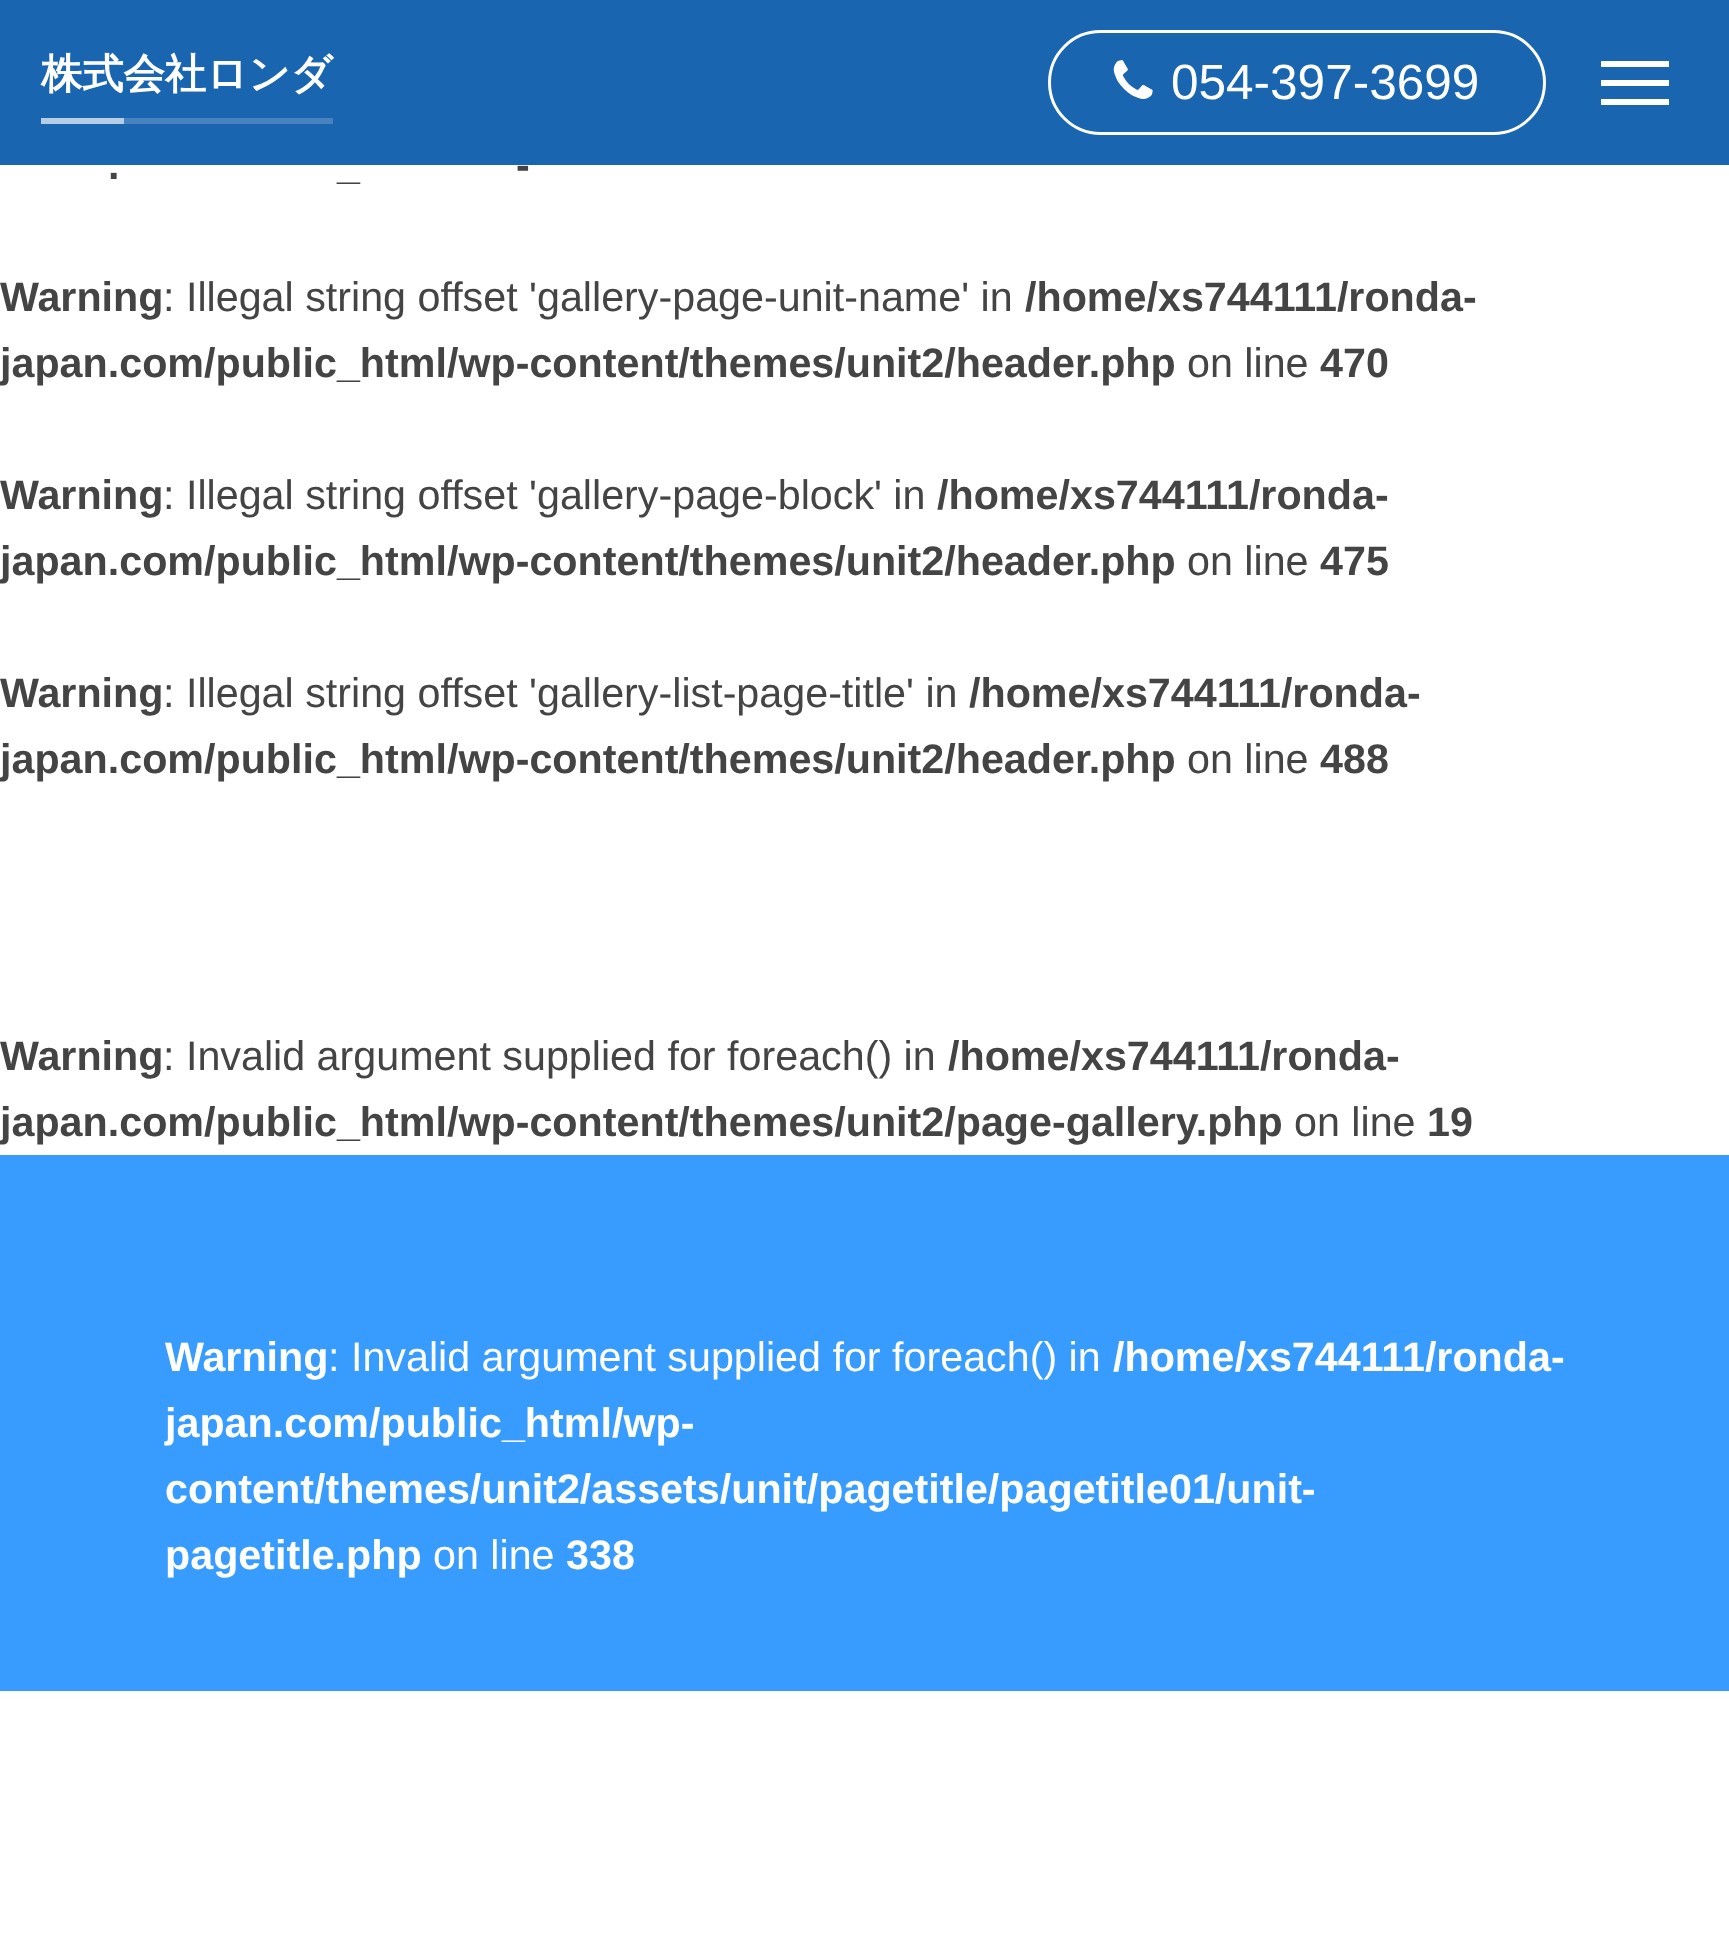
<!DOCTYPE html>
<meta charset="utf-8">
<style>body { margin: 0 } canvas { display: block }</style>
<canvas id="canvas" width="1729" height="1948"></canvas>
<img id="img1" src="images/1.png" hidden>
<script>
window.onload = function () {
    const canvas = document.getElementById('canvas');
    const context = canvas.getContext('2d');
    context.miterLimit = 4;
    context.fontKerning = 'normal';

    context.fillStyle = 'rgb(255, 255, 255)';
    context.fillRect(0, 0, 1729, 1948);
    context.fillStyle = 'rgba(0, 84, 166, 0.9)';
    context.fillRect(0, 0, 1729, 165);
    context.fillStyle = 'rgb(182, 206, 229)';
    context.fillRect(41, 118, 83, 6);
    context.fillStyle = 'rgba(255, 255, 255, 0.2)';
    context.fillRect(124, 118, 209, 6);
    context.beginPath();
    context.roundRect(1049.5, 31.5, 495, 102, 51);
    context.strokeStyle = 'rgb(255, 255, 255)';
    context.lineWidth = 3;
    context.stroke();
    context.drawImage(document.getElementById('img1'), 1113, 60, 40, 39);
    context.fillStyle = 'rgb(255, 255, 255)';
    context.fillRect(1601, 80, 68, 6);
    context.fillRect(1601, 61, 68, 6);
    context.fillRect(1601, 99, 68, 6);
    context.fillStyle = 'rgb(56, 156, 255)';
    context.fillRect(0, 1155, 1729, 536);
    context.font = 'bold 41.25px WenQuanYi Zen Hei';
    context.fillStyle = 'rgb(255, 255, 255)';
    context.fillText('株式会社ロンダ', 41, 88);
    context.font = '49.5px Liberation Sans';
    context.fillText('054-397-3699', 1171, 99);
    context.font = 'bold 41.25px Liberation Sans';
    context.fillStyle = 'rgb(68, 68, 68)';
    context.fillText('-', 516, 179);
    context.fillText('.', 108, 179);
    context.fillText('_', 337, 179);
    context.fillText('Warning', 0, 311);
    context.font = '41.25px Liberation Sans';
    context.fillText(': Illegal string offset \'gallery-page-unit-name\' in', 163, 311);
    context.font = 'bold 41.25px Liberation Sans';
    context.fillText('/home/xs744111/ronda-', 1025, 311);
    context.fillText('japan.com/public_html/wp-content/themes/unit2/header.php', 0, 377);
    context.font = '41.25px Liberation Sans';
    context.fillText('on line', 1187, 377);
    context.font = 'bold 41.25px Liberation Sans';
    context.fillText('470', 1320, 377);
    context.fillText('Warning', 0, 509);
    context.font = '41.25px Liberation Sans';
    context.fillText(': Illegal string offset \'gallery-page-block\' in', 163, 509);
    context.font = 'bold 41.25px Liberation Sans';
    context.fillText('/home/xs744111/ronda-', 937, 509);
    context.fillText('japan.com/public_html/wp-content/themes/unit2/header.php', 0, 575);
    context.font = '41.25px Liberation Sans';
    context.fillText('on line', 1187, 575);
    context.font = 'bold 41.25px Liberation Sans';
    context.fillText('475', 1320, 575);
    context.fillText('Warning', 0, 707);
    context.font = '41.25px Liberation Sans';
    context.fillText(': Illegal string offset \'gallery-list-page-title\' in', 163, 707);
    context.font = 'bold 41.25px Liberation Sans';
    context.fillText('/home/xs744111/ronda-', 969, 707);
    context.fillText('japan.com/public_html/wp-content/themes/unit2/header.php', 0, 773);
    context.font = '41.25px Liberation Sans';
    context.fillText('on line', 1187, 773);
    context.font = 'bold 41.25px Liberation Sans';
    context.fillText('488', 1320, 773);
    context.fillText('Warning', 0, 1070);
    context.font = '41.25px Liberation Sans';
    context.fillText(': Invalid argument supplied for foreach() in', 163, 1070);
    context.font = 'bold 41.25px Liberation Sans';
    context.fillText('/home/xs744111/ronda-', 948, 1070);
    context.fillText('japan.com/public_html/wp-content/themes/unit2/page-gallery.php', 0, 1136);
    context.font = '41.25px Liberation Sans';
    context.fillText('on line', 1294, 1136);
    context.font = 'bold 41.25px Liberation Sans';
    context.fillText('19', 1427, 1136);
    context.fillStyle = 'rgb(255, 255, 255)';
    context.fillText('Warning', 165, 1371);
    context.font = '41.25px Liberation Sans';
    context.fillText(': Invalid argument supplied for foreach() in', 328, 1371);
    context.font = 'bold 41.25px Liberation Sans';
    context.fillText('/home/xs744111/ronda-', 1113, 1371);
    context.fillText('japan.com/public_html/wp-', 165, 1437);
    context.fillText('content/themes/unit2/assets/unit/pagetitle/pagetitle01/unit-', 165, 1503);
    context.fillText('pagetitle.php', 165, 1569);
    context.font = '41.25px Liberation Sans';
    context.fillText('on line', 433, 1569);
    context.font = 'bold 41.25px Liberation Sans';
    context.fillText('338', 566, 1569);
};
</script>
